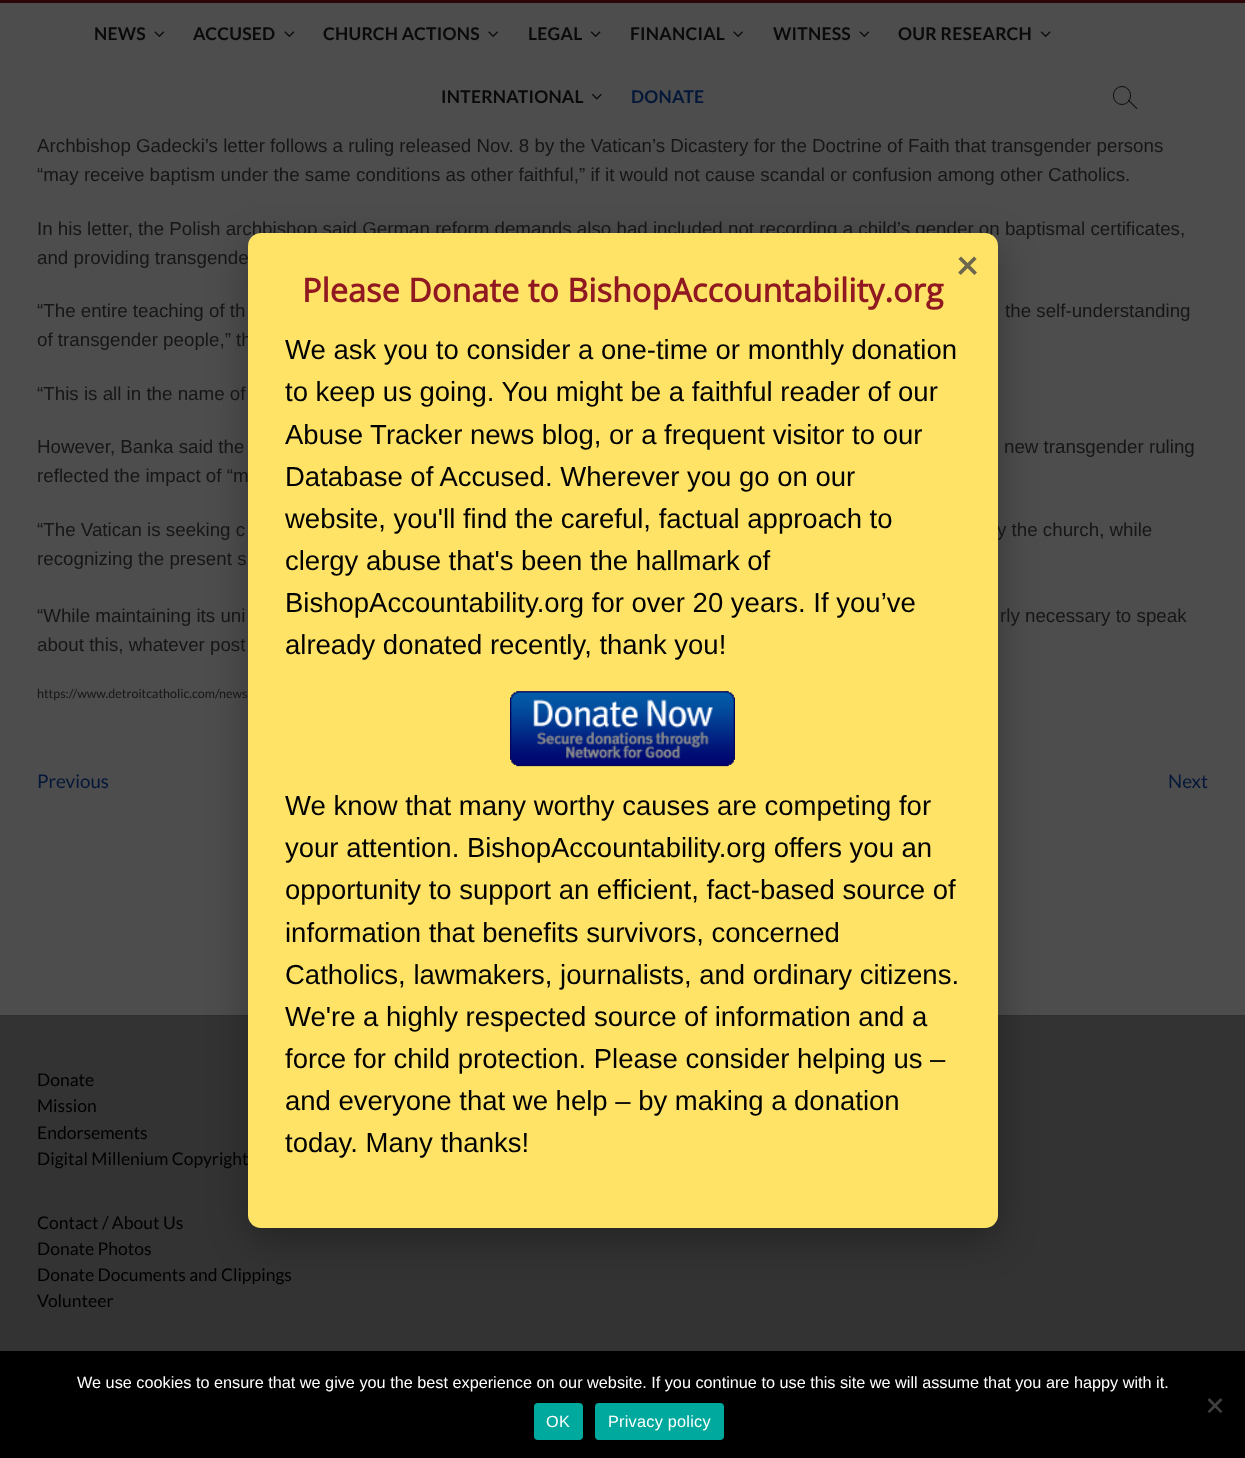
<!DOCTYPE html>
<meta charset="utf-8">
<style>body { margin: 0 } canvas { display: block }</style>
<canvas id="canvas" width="1245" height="1458"></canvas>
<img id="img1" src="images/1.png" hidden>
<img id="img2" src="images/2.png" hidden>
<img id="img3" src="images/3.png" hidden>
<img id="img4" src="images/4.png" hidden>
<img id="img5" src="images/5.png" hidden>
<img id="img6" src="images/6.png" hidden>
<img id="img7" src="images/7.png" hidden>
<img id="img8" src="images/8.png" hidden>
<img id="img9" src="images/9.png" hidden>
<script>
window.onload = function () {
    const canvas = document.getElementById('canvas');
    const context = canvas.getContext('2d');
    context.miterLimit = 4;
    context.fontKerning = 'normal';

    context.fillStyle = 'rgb(77, 77, 77)';
    context.fillRect(0, 0, 1245, 1458);
    context.fillStyle = 'rgb(43, 7, 10)';
    context.fillRect(0, 0, 1245, 3);
    context.drawImage(document.getElementById('img1'), 154, 31, 11, 6);
    context.drawImage(document.getElementById('img2'), 284, 31, 11, 6);
    context.drawImage(document.getElementById('img3'), 488, 31, 10, 6);
    context.drawImage(document.getElementById('img4'), 590, 31, 11, 6);
    context.drawImage(document.getElementById('img5'), 733, 31, 10, 6);
    context.drawImage(document.getElementById('img6'), 859, 31, 11, 6);
    context.drawImage(document.getElementById('img7'), 1040, 31, 11, 6);
    context.drawImage(document.getElementById('img8'), 592, 93, 10, 7);
    context.beginPath();
    context.roundRect(1113.5, 86.5, 17, 18, 8.5);
    context.strokeStyle = 'rgb(15, 15, 15)';
    context.stroke();
    context.fillStyle = 'rgb(15, 15, 15)';
    context.beginPath();
    context.moveTo(1128, 100.5);
    context.lineTo(1128.5, 99.5);
    context.lineTo(1137.5, 108.5);
    context.lineTo(1136.5, 109);
    context.closePath();
    context.fill();
    context.fillStyle = 'rgb(51, 51, 51)';
    context.fillRect(0, 1016, 1245, 335);
    context.fillStyle = 'rgb(48, 48, 48)';
    context.fillRect(0, 1015, 1245, 1);
    context.fillStyle = 'rgba(0, 0, 0, 0.3)';
    context.filter = 'blur(19px)';
    context.beginPath();
    context.roundRect(248, 245, 750, 995, 13);
    context.fill();
    context.filter = 'none';
    context.fillStyle = 'rgb(0, 0, 0)';
    context.fillRect(0, 1351, 1245, 107);
    context.fillStyle = 'rgb(64, 64, 64)';
    context.beginPath();
    context.moveTo(1220.5, 1398);
    context.lineTo(1222.5, 1400);
    context.lineTo(1209.5, 1413);
    context.lineTo(1207.5, 1411.5);
    context.closePath();
    context.fill();
    context.beginPath();
    context.moveTo(1207.5, 1400);
    context.lineTo(1209.5, 1398);
    context.lineTo(1222.5, 1411.5);
    context.lineTo(1220.5, 1413);
    context.closePath();
    context.fill();
    context.fillStyle = 'rgb(0, 169, 157)';
    context.beginPath();
    context.roundRect(534, 1403, 49, 37, 4);
    context.fill();
    context.beginPath();
    context.roundRect(595, 1403, 129, 37, 4);
    context.fill();
    context.letterSpacing = '0.25px';
    context.font = 'bold 17.5px Lato';
    context.fillStyle = 'rgb(10, 10, 10)';
    context.fillText('NEWS', 94, 40);
    context.fillText('ACCUSED', 193, 40);
    context.fillText('CHURCH ACTIONS', 323, 40);
    context.fillText('LEGAL', 528, 40);
    context.fillText('FINANCIAL', 630, 40);
    context.fillText('WITNESS', 773, 40);
    context.fillText('OUR RESEARCH', 898, 40);
    context.fillText('INTERNATIONAL', 441, 103);
    context.fillStyle = 'rgb(4, 23, 56)';
    context.fillText('DONATE', 631, 103);
    context.letterSpacing = '0px';
    context.font = '18.75px Liberation Sans';
    context.fillStyle = 'rgb(22, 22, 22)';
    context.fillText('Archbishop Gadecki’s letter follows a ruling released Nov. 8 by the Vatican’s Dicastery for the Doctrine of Faith that transgender persons', 37, 152);
    context.fillText('“may receive baptism under the same conditions as other faithful,” if it would not cause scandal or confusion among other Catholics.', 37, 181);
    context.fillText('In his letter, the Polish archbishop said German reform demands also had included not recording a child’s gender on baptismal certificates,', 37, 235);
    context.fillText('and providing transgende', 37, 264);
    context.fillText('“The entire teaching of th', 37, 317);
    context.fillText('the self-understanding', 1005, 317);
    context.fillText('of transgender people,” th', 37, 346);
    context.fillText('“This is all in the name of', 37, 400);
    context.fillText('However, Banka said the', 37, 453);
    context.fillText('new transgender ruling', 1004, 453);
    context.fillText('reflected the impact of “m', 37, 482);
    context.fillText('“The Vatican is seeking c', 37, 536);
    context.fillText('y the church, while', 997, 536);
    context.fillText('recognizing the present s', 37, 565);
    context.fillText('“While maintaining its uni', 37, 622);
    context.fillText('rly necessary to speak', 1000, 622);
    context.fillText('about this, whatever post', 37, 651);
    context.font = '12.5px Lato';
    context.fillText('https://www.detroitcatholic.com/news', 37, 698);
    context.font = '18.75px Lato';
    context.fillStyle = 'rgb(4, 23, 56)';
    context.fillText('Previous', 37, 788);
    context.fillText('Next', 1168, 788);
    context.font = '17.5px Lato';
    context.fillStyle = 'rgb(0, 0, 0)';
    context.fillText('Donate', 37, 1086);
    context.fillText('Mission', 37, 1112);
    context.fillText('Endorsements', 37, 1139);
    context.fillText('Digital Millenium Copyright', 37, 1165);
    context.fillStyle = 'rgb(255, 227, 103)';
    context.beginPath();
    context.roundRect(248, 233, 750, 995, 13);
    context.fill();
    context.font = 'bold 40px Lato';
    context.fillStyle = 'rgb(109, 103, 78)';
    context.fillText('×', 956, 279);
    context.font = '27.5px Liberation Sans';
    context.fillStyle = 'rgb(0, 0, 0)';
    context.fillText('today. Many thanks!', 285, 1152);
    context.fillText('and everyone that we help – by making a donation', 285, 1110);
    context.fillText('force for child protection. Please consider helping us –', 285, 1068);
    context.fillText('We\'re a highly respected source of information and a', 285, 1026);
    context.fillText('Catholics, lawmakers, journalists, and ordinary citizens.', 285, 984);
    context.fillText('information that benefits survivors, concerned', 285, 942);
    context.fillText('opportunity to support an efficient, fact-based source of', 285, 899);
    context.fillText('your attention. BishopAccountability.org offers you an', 285, 857);
    context.fillText('We know that many worthy causes are competing for', 285, 815);
    context.drawImage(document.getElementById('img9'), 510, 691, 225, 76);
    context.fillText('already donated recently, thank you!', 285, 654);
    context.fillText('BishopAccountability.org for over 20 years. If you’ve', 285, 612);
    context.fillText('clergy abuse that\'s been the hallmark of', 285, 570);
    context.fillText('website, you\'ll find the careful, factual approach to', 285, 528);
    context.fillText('Database of Accused. Wherever you go on our', 285, 486);
    context.fillText('Abuse Tracker news blog, or a frequent visitor to our', 285, 444);
    context.fillText('to keep us going. You might be a faithful reader of our', 285, 401);
    context.fillText('We ask you to consider a one-time or monthly donation', 285, 359);
    context.font = 'bold 32.5px Open Sans';
    context.fillStyle = 'rgb(144, 25, 33)';
    context.fillText('Please Donate to BishopAccountability.org', 302, 302);
    context.font = '17.5px Lato';
    context.fillStyle = 'rgb(0, 0, 0)';
    context.fillText('Contact / About Us', 37, 1229);
    context.fillText('Donate Photos', 37, 1255);
    context.fillText('Donate Documents and Clippings', 37, 1281);
    context.fillText('Volunteer', 37, 1307);
    context.font = '16.25px Liberation Sans';
    context.fillStyle = 'rgb(255, 255, 255)';
    context.fillText('We use cookies to ensure that we give you the best experience on our website. If you continue to use this site we will assume that you are happy with it.', 77, 1388);
    context.letterSpacing = '0.25px';
    context.fillText('OK', 546, 1427);
    context.fillText('Privacy policy', 608, 1427);
};
</script>
